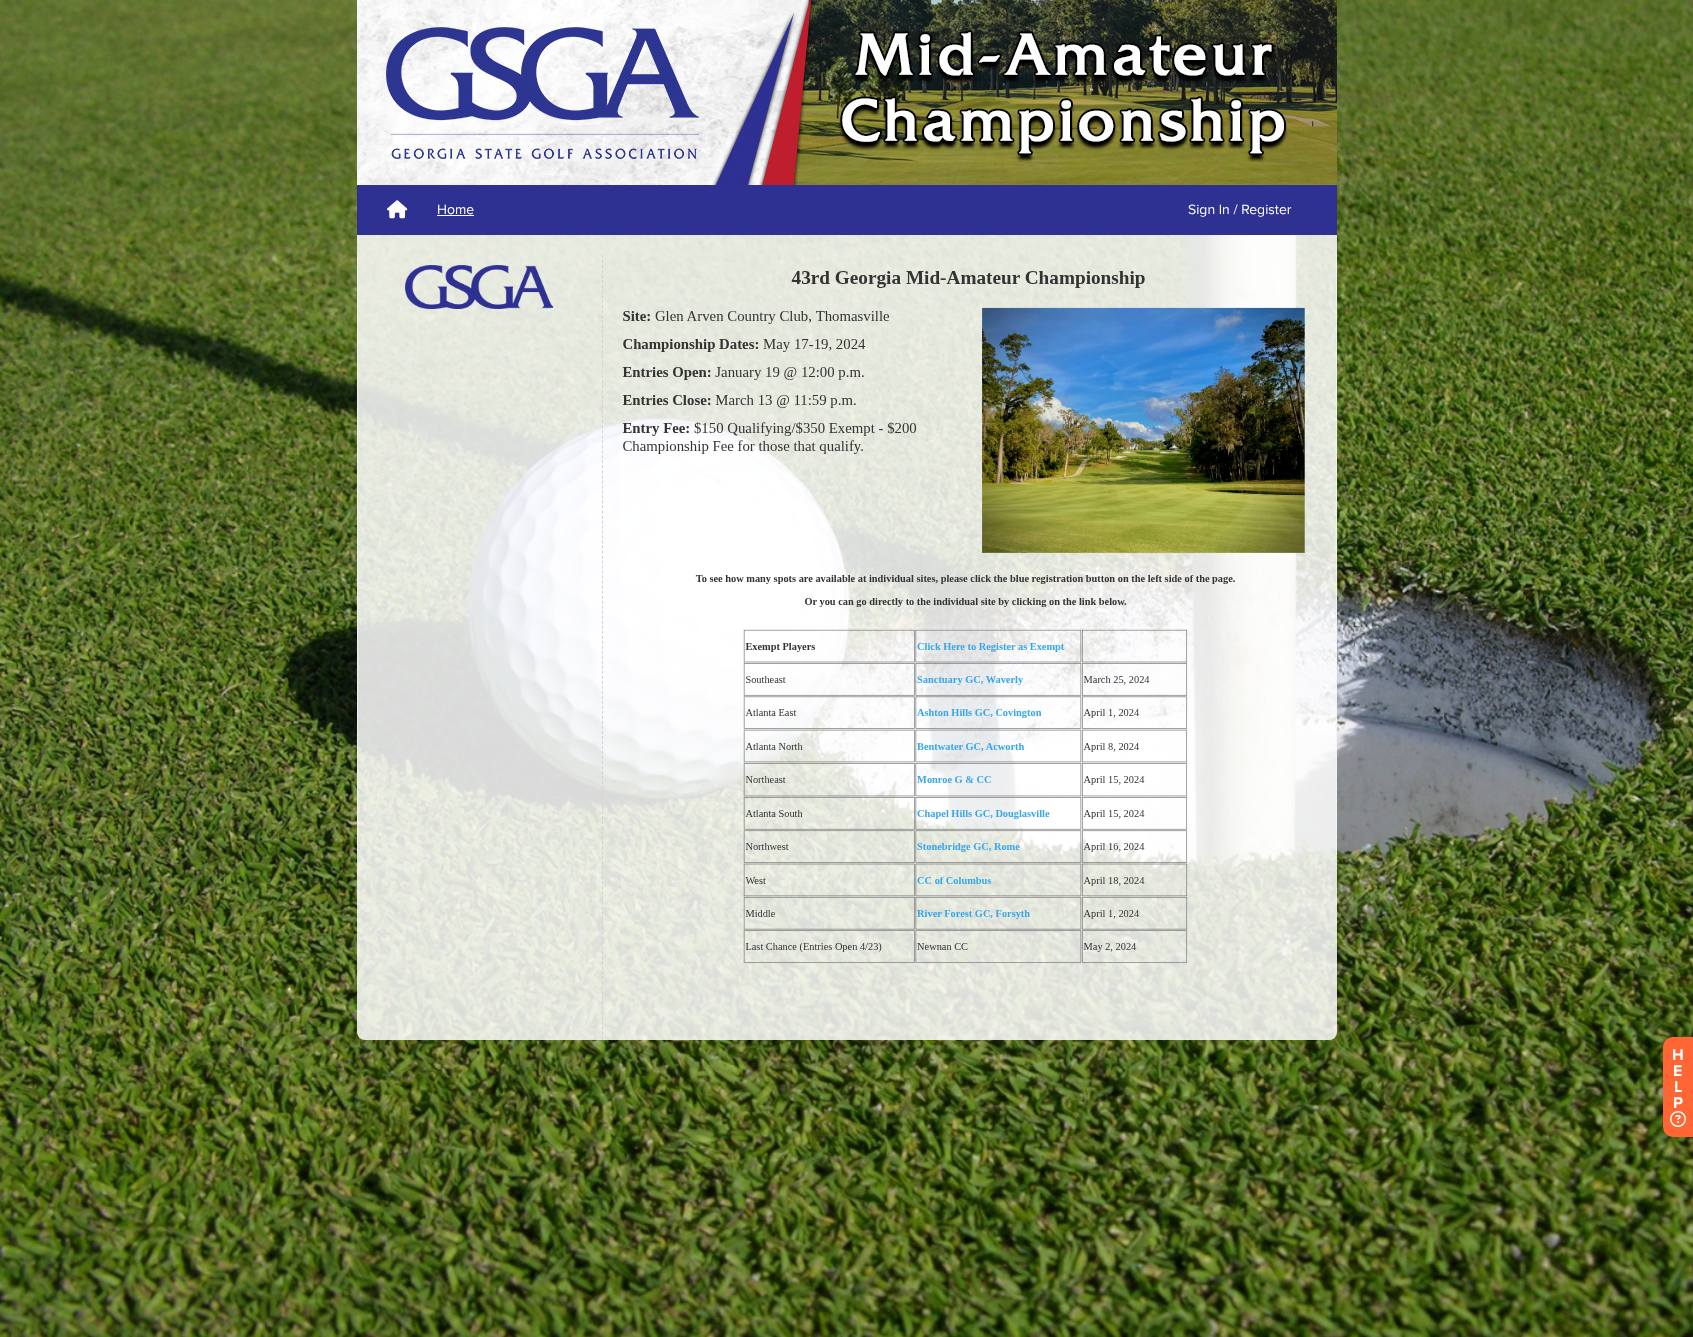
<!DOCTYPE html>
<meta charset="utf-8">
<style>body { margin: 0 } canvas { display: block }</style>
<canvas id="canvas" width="1693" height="1337"></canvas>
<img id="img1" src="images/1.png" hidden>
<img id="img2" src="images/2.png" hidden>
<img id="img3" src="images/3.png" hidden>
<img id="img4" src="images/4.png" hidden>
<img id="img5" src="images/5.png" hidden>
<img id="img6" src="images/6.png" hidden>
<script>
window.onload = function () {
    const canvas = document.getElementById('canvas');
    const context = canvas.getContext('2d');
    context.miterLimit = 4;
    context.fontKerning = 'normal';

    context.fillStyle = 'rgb(255, 255, 255)';
    context.fillRect(0, 0, 1693, 1337);
    context.drawImage(document.getElementById('img1'), 0, 0, 1693, 1337);
    context.fillStyle = 'rgba(255, 255, 255, 0.85)';
    context.beginPath();
    context.roundRect(357, 0, 980, 1040, [0, 0, 8, 8]);
    context.fill();
    context.drawImage(document.getElementById('img2'), 357, 0, 980, 185);
    context.fillStyle = 'rgb(46, 49, 146)';
    context.fillRect(357, 185, 980, 50);
    context.drawImage(document.getElementById('img3'), 387, 200, 21, 19);
    context.fillStyle = 'rgb(255, 255, 255)';
    context.fillRect(437, 215, 37, 1);
    context.fillStyle = 'rgba(242, 242, 242, 0.85)';
    context.fillRect(1336, 255, 1, 600);
    context.fillRect(357, 255, 1, 600);
    context.drawImage(document.getElementById('img4'), 405, 265, 149, 44);
    context.beginPath();
    context.moveTo(602.5, 255);
    context.lineTo(602.5, 1040);
    context.strokeStyle = 'rgb(211, 211, 211)';
    context.setLineDash([3, 2.01]);
    context.stroke();
    context.drawImage(document.getElementById('img5'), 622, 271, 683, 692);
    context.fillStyle = 'rgb(255, 102, 51)';
    context.beginPath();
    context.roundRect(1663, 1037, 30, 100, [10, 0, 0, 10]);
    context.fill();
    context.drawImage(document.getElementById('img6'), 1670, 1111, 16, 16);
    context.font = '14px Proxima Nova';
    context.fillStyle = 'rgb(255, 255, 255)';
    context.fillText('Home', 437, 214);
    context.fillText('Sign In / Register', 1188, 214);
    context.font = 'bold 16px Proxima Nova';
    context.fillText('H', 1672, 1060);
    context.fillText('E', 1673, 1076);
    context.fillText('L', 1674, 1092);
    context.fillText('P', 1673, 1108);
};
</script>
